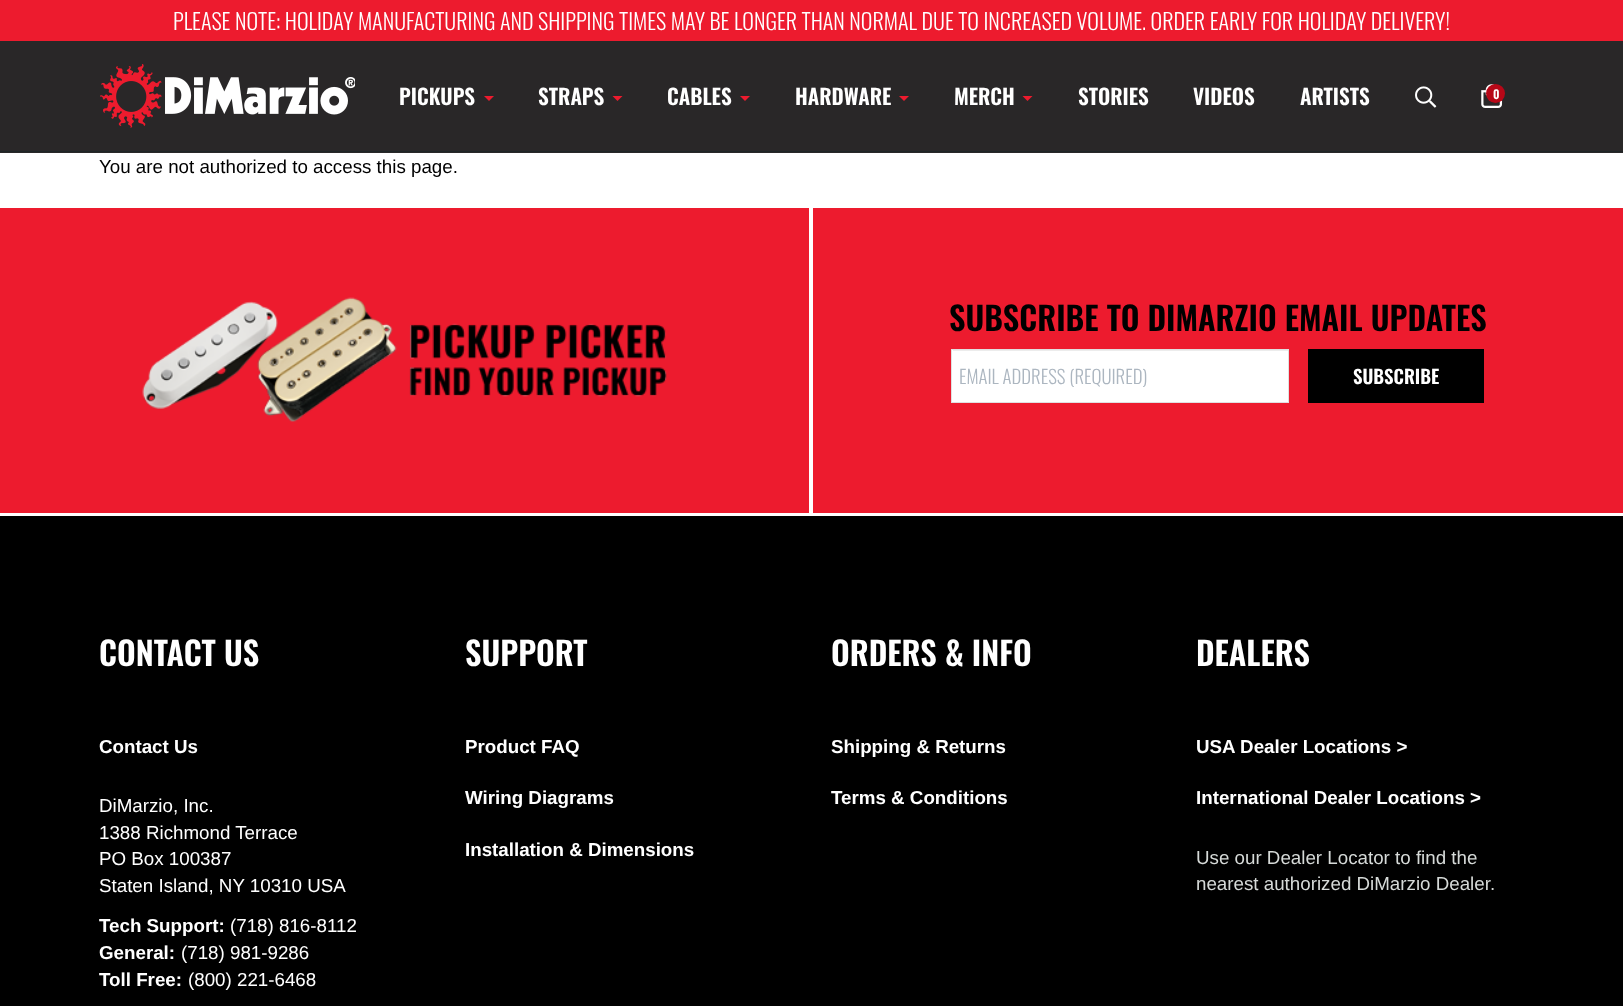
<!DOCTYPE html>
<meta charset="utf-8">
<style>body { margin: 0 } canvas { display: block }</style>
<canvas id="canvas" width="1623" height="1006"></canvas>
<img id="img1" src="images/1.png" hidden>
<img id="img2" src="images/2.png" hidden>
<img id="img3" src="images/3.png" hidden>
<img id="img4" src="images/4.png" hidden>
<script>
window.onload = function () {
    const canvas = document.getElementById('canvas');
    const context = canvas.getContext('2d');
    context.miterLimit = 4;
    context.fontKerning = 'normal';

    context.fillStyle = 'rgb(255, 255, 255)';
    context.fillRect(0, 0, 1623, 1006);
    context.fillStyle = 'rgb(237, 27, 46)';
    context.fillRect(0, 0, 1623, 41);
    context.fillStyle = 'rgb(41, 39, 40)';
    context.fillRect(0, 41, 1623, 112);
    context.fillStyle = 'rgb(30, 37, 38)';
    context.fillRect(0, 151, 1623, 1);
    context.drawImage(document.getElementById('img1'), 100, 64, 255, 64);
    context.fillStyle = 'rgb(237, 27, 46)';
    context.beginPath();
    context.moveTo(484, 96);
    context.lineTo(494, 96);
    context.lineTo(489, 101);
    context.closePath();
    context.fill();
    context.beginPath();
    context.moveTo(612.5, 96);
    context.lineTo(622.5, 96);
    context.lineTo(617.5, 101);
    context.closePath();
    context.fill();
    context.beginPath();
    context.moveTo(740, 96);
    context.lineTo(750, 96);
    context.lineTo(745, 101);
    context.closePath();
    context.fill();
    context.beginPath();
    context.moveTo(899, 96);
    context.lineTo(909, 96);
    context.lineTo(904, 101);
    context.closePath();
    context.fill();
    context.beginPath();
    context.moveTo(1022.5, 96);
    context.lineTo(1032.5, 96);
    context.lineTo(1027.5, 101);
    context.closePath();
    context.fill();
    context.drawImage(document.getElementById('img2'), 1415, 86, 22, 22);
    context.drawImage(document.getElementById('img3'), 1481, 84, 22, 24);
    context.fillStyle = 'rgb(183, 7, 23)';
    context.beginPath();
    context.arc(1495.5, 93.5, 9.5, 0, 2 * Math.PI);
    context.fill();
    context.fillStyle = 'rgb(237, 27, 46)';
    context.fillRect(0, 208, 1623, 305);
    context.fillStyle = 'rgb(255, 255, 255)';
    context.fillRect(809, 208, 4, 305);
    context.drawImage(document.getElementById('img4'), 142, 297, 525, 125);
    context.fillRect(952, 350, 336, 52);
    context.fillStyle = 'rgb(236, 236, 236)';
    context.fillRect(953, 350, 335, 1);
    context.strokeStyle = 'rgb(224, 224, 224)';
    context.strokeRect(951.5, 349.5, 337, 53);
    context.fillStyle = 'rgb(0, 0, 0)';
    context.fillRect(1308, 349, 176, 54);
    context.fillRect(0, 516, 1623, 490);
    context.font = '300 22.12px Oswald';
    context.fillStyle = 'rgb(255, 255, 255)';
    context.fillText('PLEASE NOTE: HOLIDAY MANUFACTURING AND SHIPPING TIMES MAY BE LONGER THAN NORMAL DUE TO INCREASED VOLUME. ORDER EARLY FOR HOLIDAY DELIVERY!', 173, 30);
    context.font = '600 21.25px Oswald';
    context.fillText('PICKUPS', 399, 105);
    context.fillText('STRAPS', 538, 105);
    context.fillText('CABLES', 667, 105);
    context.fillText('HARDWARE', 795, 105);
    context.fillText('MERCH', 954, 105);
    context.fillText('STORIES', 1078, 105);
    context.fillText('VIDEOS', 1193, 105);
    context.fillText('ARTISTS', 1300, 105);
    context.font = '600 12px Oswald';
    context.fillText('0', 1493, 99);
    context.font = '18.75px Liberation Sans';
    context.fillStyle = 'rgb(0, 0, 0)';
    context.fillText('You are not authorized to access this page.', 99, 173);
    context.font = '600 32.5px Oswald';
    context.fillText('SUBSCRIBE TO DIMARZIO EMAIL UPDATES', 949, 331);
    context.font = '300 18.75px Oswald';
    context.fillStyle = 'rgb(172, 182, 192)';
    context.fillText('EMAIL ADDRESS (REQUIRED)', 959, 384);
    context.font = '600 18.75px Oswald';
    context.fillStyle = 'rgb(255, 255, 255)';
    context.fillText('SUBSCRIBE', 1353, 384);
    context.font = '600 32.5px Oswald';
    context.fillText('CONTACT US', 99, 666);
    context.font = 'bold 18.75px Liberation Sans';
    context.fillText('Contact Us', 99, 753);
    context.font = '18.75px Liberation Sans';
    context.fillText('DiMarzio, Inc.', 99, 812);
    context.fillText('1388 Richmond Terrace', 99, 839);
    context.fillText('PO Box 100387', 99, 865);
    context.fillText('Staten Island, NY 10310 USA', 99, 892);
    context.font = 'bold 18.75px Liberation Sans';
    context.fillText('Tech Support:', 99, 932);
    context.font = '18.75px Liberation Sans';
    context.fillText('(718) 816-8112', 230, 932);
    context.font = 'bold 18.75px Liberation Sans';
    context.fillText('General:', 99, 959);
    context.font = '18.75px Liberation Sans';
    context.fillText('(718) 981-9286', 181, 959);
    context.font = 'bold 18.75px Liberation Sans';
    context.fillText('Toll Free:', 99, 986);
    context.font = '18.75px Liberation Sans';
    context.fillText('(800) 221-6468', 188, 986);
    context.font = '600 32.5px Oswald';
    context.fillText('SUPPORT', 465, 666);
    context.font = 'bold 18.75px Liberation Sans';
    context.fillText('Product FAQ', 465, 753);
    context.fillText('Wiring Diagrams', 465, 804);
    context.fillText('Installation & Dimensions', 465, 856);
    context.font = '600 32.5px Oswald';
    context.fillText('ORDERS & INFO', 831, 666);
    context.font = 'bold 18.75px Liberation Sans';
    context.fillText('Shipping & Returns', 831, 753);
    context.fillText('Terms & Conditions', 831, 804);
    context.font = '600 32.5px Oswald';
    context.fillText('DEALERS', 1196, 666);
    context.font = 'bold 18.75px Liberation Sans';
    context.fillText('USA Dealer Locations >', 1196, 753);
    context.fillText('International Dealer Locations >', 1196, 804);
    context.font = '18.75px Liberation Sans';
    context.fillStyle = 'rgb(214, 218, 216)';
    context.fillText('Use our Dealer Locator to find the', 1196, 864);
    context.fillText('nearest authorized DiMarzio Dealer.', 1196, 890);
};
</script>
